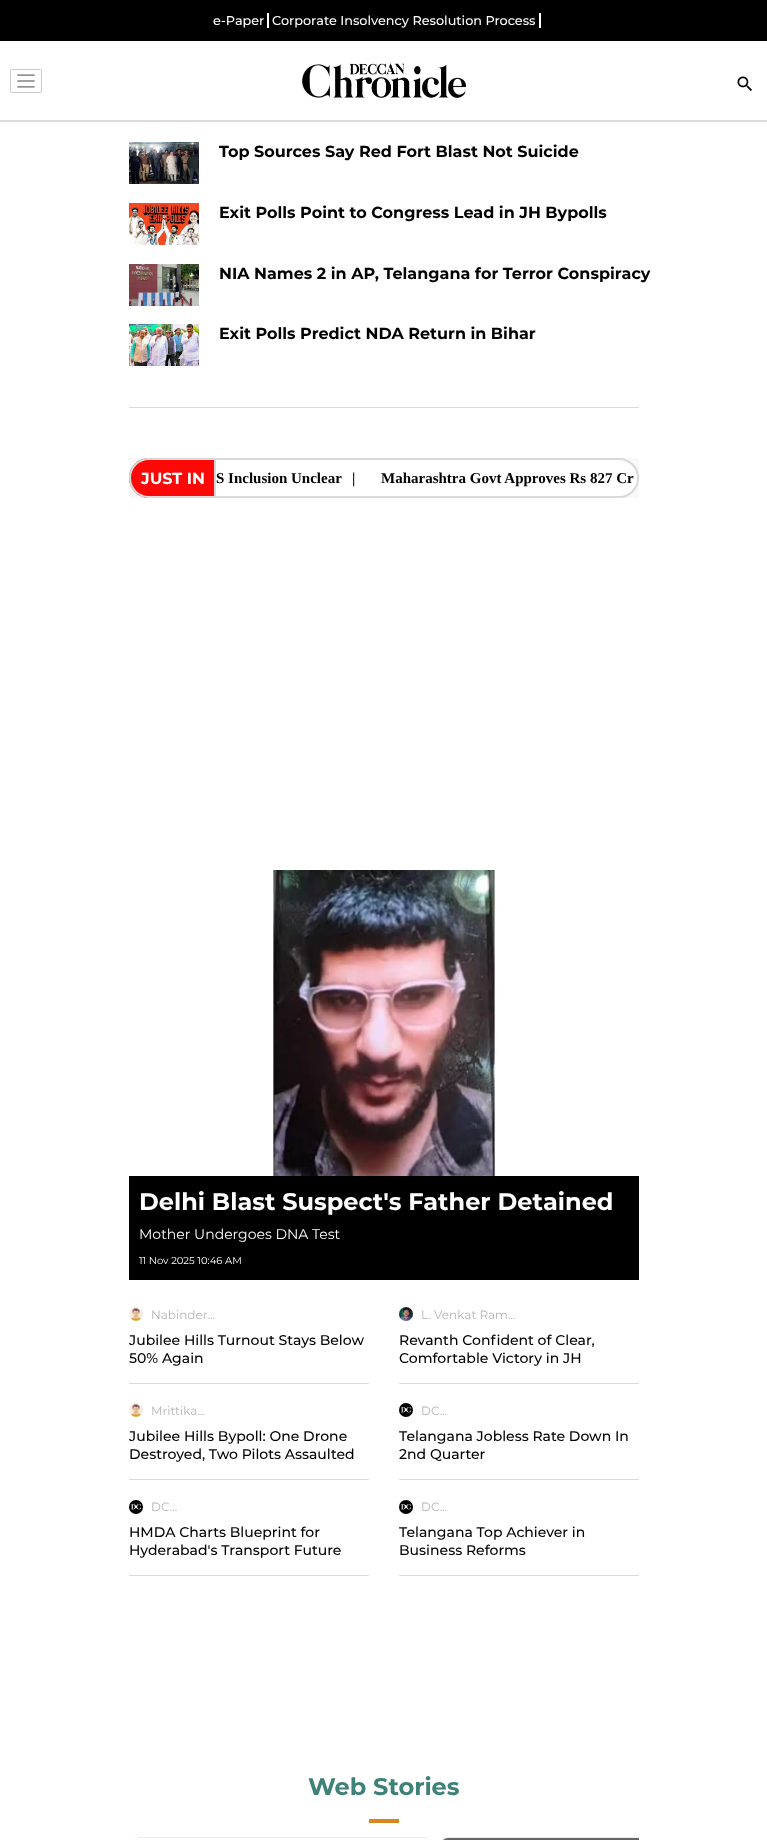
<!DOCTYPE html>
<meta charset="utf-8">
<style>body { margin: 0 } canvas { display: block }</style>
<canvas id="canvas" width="767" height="1840"></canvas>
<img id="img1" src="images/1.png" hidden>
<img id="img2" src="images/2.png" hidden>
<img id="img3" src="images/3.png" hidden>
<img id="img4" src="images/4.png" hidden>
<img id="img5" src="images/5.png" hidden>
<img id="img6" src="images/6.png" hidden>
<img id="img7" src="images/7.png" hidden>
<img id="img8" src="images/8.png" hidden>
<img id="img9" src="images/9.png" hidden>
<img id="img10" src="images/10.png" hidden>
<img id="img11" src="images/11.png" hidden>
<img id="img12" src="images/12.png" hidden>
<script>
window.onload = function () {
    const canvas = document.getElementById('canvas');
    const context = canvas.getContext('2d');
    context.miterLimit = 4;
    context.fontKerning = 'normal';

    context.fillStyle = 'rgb(255, 255, 255)';
    context.fillRect(0, 0, 767, 1840);
    context.fillStyle = 'rgb(0, 0, 0)';
    context.fillRect(0, 0, 767, 41);
    context.fillStyle = 'rgb(255, 255, 255)';
    context.fillRect(267, 13, 2, 15);
    context.fillRect(539, 13, 2, 15);
    context.fillStyle = 'rgb(219, 219, 219)';
    context.fillRect(0, 120, 767, 2);
    context.drawImage(document.getElementById('img1'), 17, 74, 18, 14);
    context.beginPath();
    context.roundRect(10.5, 69.5, 31, 23, 1.5);
    context.strokeStyle = 'rgb(204, 204, 204)';
    context.stroke();
    context.drawImage(document.getElementById('img2'), 302, 63, 164, 35);
    context.drawImage(document.getElementById('img3'), 737, 76, 15, 15);
    context.fillRect(129, 407, 510, 1);
    context.drawImage(document.getElementById('img4'), 129, 142, 70, 42);
    context.drawImage(document.getElementById('img5'), 129, 203, 70, 42);
    context.drawImage(document.getElementById('img6'), 129, 264, 70, 42);
    context.drawImage(document.getElementById('img7'), 129, 324, 70, 42);
    context.fillStyle = 'rgb(248, 248, 248)';
    context.fillRect(129, 458, 510, 40);
    context.fillStyle = 'rgb(254, 7, 7)';
    context.beginPath();
    context.roundRect(129, 458, 85, 40, [20, 0, 0, 20]);
    context.fill();
    context.fillStyle = 'rgb(217, 217, 217)';
    context.beginPath();
    context.moveTo(149, 458);
    context.lineTo(214, 458);
    context.lineTo(214, 498);
    context.lineTo(149, 498);
    context.bezierCurveTo(138, 498, 129, 489, 129, 478);
    context.bezierCurveTo(129, 467, 138, 458, 149, 458);
    context.closePath();
    context.moveTo(149, 460);
    context.lineTo(214, 460);
    context.lineTo(214, 496);
    context.lineTo(149, 496);
    context.bezierCurveTo(139, 496, 131, 488, 131, 478);
    context.bezierCurveTo(131, 468, 139, 460, 149, 460);
    context.closePath();
    context.fill('evenodd');
    context.fillStyle = 'rgb(255, 255, 255)';
    context.beginPath();
    context.roundRect(215, 459, 423, 38, [0, 19, 19, 0]);
    context.fill();
    context.strokeStyle = 'rgb(217, 217, 217)';
    context.lineWidth = 2;
    context.stroke();
    context.drawImage(document.getElementById('img8'), 273, 870, 224, 306);
    context.fillStyle = 'rgb(0, 0, 0)';
    context.fillRect(129, 1176, 510, 104);
    context.fillStyle = 'rgb(219, 219, 219)';
    context.fillRect(129, 1383, 240, 1);
    context.drawImage(document.getElementById('img9'), 129, 1307, 14, 14);
    context.fillRect(399, 1383, 240, 1);
    context.drawImage(document.getElementById('img10'), 399, 1307, 14, 14);
    context.fillRect(129, 1479, 240, 1);
    context.drawImage(document.getElementById('img9'), 129, 1403, 14, 14);
    context.fillRect(399, 1479, 240, 1);
    context.drawImage(document.getElementById('img11'), 399, 1403, 14, 14);
    context.fillRect(129, 1575, 240, 1);
    context.drawImage(document.getElementById('img12'), 129, 1500, 14, 14);
    context.fillRect(399, 1575, 240, 1);
    context.drawImage(document.getElementById('img11'), 399, 1500, 14, 14);
    context.fillStyle = 'rgb(217, 135, 28)';
    context.fillRect(369, 1819, 30, 4);
    context.beginPath();
    context.roundRect(134.5, 1837.5, 295, 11, 7.5);
    context.strokeStyle = 'rgb(238, 238, 238)';
    context.lineWidth = 1;
    context.stroke();
    context.save();
    context.beginPath();
    context.rect(129, 1832, 510, 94);
    context.clip();
    context.beginPath();
    context.roundRect(440.5, 1837.5, 295, 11, 7.5);
    context.stroke();
    context.restore();
    context.fillStyle = 'rgba(0, 0, 0, 0.6)';
    context.beginPath();
    context.moveTo(448, 1838);
    context.lineTo(639, 1838);
    context.lineTo(639, 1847);
    context.lineTo(448, 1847);
    context.bezierCurveTo(444, 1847, 441, 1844, 441, 1840);
    context.lineTo(441, 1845);
    context.bezierCurveTo(441, 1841, 444, 1838, 448, 1838);
    context.closePath();
    context.fill();
    context.font = '500 12.8px Montserrat';
    context.fillStyle = 'rgb(255, 255, 255)';
    context.fillText('e-Paper', 213, 25);
    context.fillText('Corporate Insolvency Resolution Process', 272, 25);
    context.save();
    context.beginPath();
    context.rect(219, 142, 450, 45);
    context.clip();
    context.font = 'bold 16px Montserrat';
    context.fillStyle = 'rgb(0, 0, 0)';
    context.fillText('Top Sources Say Red Fort Blast Not Suicide', 219, 157);
    context.restore();
    context.font = 'bold 16px Montserrat';
    context.fillStyle = 'rgb(0, 0, 0)';
    context.fillText('Exit Polls Point to Congress Lead in JH Bypolls', 219, 218);
    context.fillText('NIA Names 2 in AP, Telangana for Terror Conspiracy', 219, 279);
    context.fillText('Exit Polls Predict NDA Return in Bihar', 219, 339);
    context.fillStyle = 'rgb(255, 255, 255)';
    context.fillText('JUST IN', 141, 484);
    context.font = 'bold 15px Liberation Serif';
    context.fillStyle = 'rgb(0, 0, 0)';
    context.fillText('S Inclusion Unclear', 216, 483);
    context.fillText('|', 352, 483);
    context.fillText('Maharashtra Govt Approves Rs 827 Cr', 381, 483);
    context.font = 'bold 24px Montserrat';
    context.fillStyle = 'rgb(255, 255, 255)';
    context.fillText('Delhi Blast Suspect\'s Father Detained', 139, 1210);
    context.font = '14px Montserrat';
    context.fillText('Mother Undergoes DNA Test', 139, 1239);
    context.font = '10px Montserrat';
    context.fillText('11 Nov 2025 10:46 AM', 139, 1264);
    context.font = '12px Montserrat';
    context.fillStyle = 'rgb(181, 181, 181)';
    context.fillText('Nabinder...', 151, 1319);
    context.font = '500 14px Montserrat';
    context.fillStyle = 'rgb(0, 0, 0)';
    context.fillText('Jubilee Hills Turnout Stays Below', 129, 1345);
    context.fillText('50% Again', 129, 1363);
    context.font = '12px Montserrat';
    context.fillStyle = 'rgb(181, 181, 181)';
    context.fillText('L. Venkat Ram...', 421, 1319);
    context.font = '500 14px Montserrat';
    context.fillStyle = 'rgb(0, 0, 0)';
    context.fillText('Revanth Confident of Clear,', 399, 1345);
    context.fillText('Comfortable Victory in JH', 399, 1363);
    context.font = '12px Montserrat';
    context.fillStyle = 'rgb(181, 181, 181)';
    context.fillText('Mrittika...', 151, 1415);
    context.font = '500 14px Montserrat';
    context.fillStyle = 'rgb(0, 0, 0)';
    context.fillText('Jubilee Hills Bypoll: One Drone', 129, 1441);
    context.fillText('Destroyed, Two Pilots Assaulted', 129, 1459);
    context.font = '12px Montserrat';
    context.fillStyle = 'rgb(181, 181, 181)';
    context.fillText('DC...', 421, 1415);
    context.font = '500 14px Montserrat';
    context.fillStyle = 'rgb(0, 0, 0)';
    context.fillText('Telangana Jobless Rate Down In', 399, 1441);
    context.fillText('2nd Quarter', 399, 1459);
    context.font = '12px Montserrat';
    context.fillStyle = 'rgb(181, 181, 181)';
    context.fillText('DC...', 151, 1511);
    context.font = '500 14px Montserrat';
    context.fillStyle = 'rgb(0, 0, 0)';
    context.fillText('HMDA Charts Blueprint for', 129, 1537);
    context.fillText('Hyderabad\'s Transport Future', 129, 1555);
    context.font = '12px Montserrat';
    context.fillStyle = 'rgb(181, 181, 181)';
    context.fillText('DC...', 421, 1511);
    context.font = '500 14px Montserrat';
    context.fillStyle = 'rgb(0, 0, 0)';
    context.fillText('Telangana Top Achiever in', 399, 1537);
    context.fillText('Business Reforms', 399, 1555);
    context.font = 'bold 24px Montserrat';
    context.fillStyle = 'rgb(62, 129, 119)';
    context.fillText('Web Stories', 308, 1795);
};
</script>
